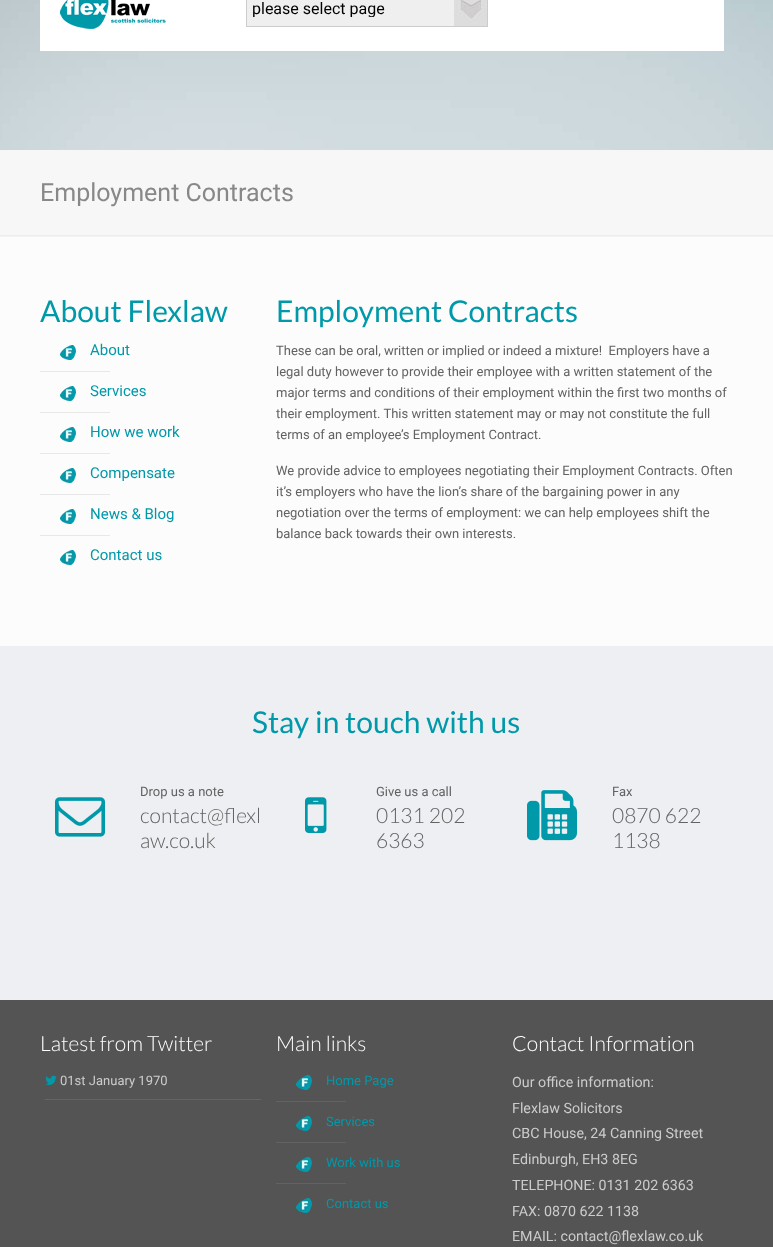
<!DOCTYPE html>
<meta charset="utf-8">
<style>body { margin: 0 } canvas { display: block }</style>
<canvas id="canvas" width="773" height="1247"></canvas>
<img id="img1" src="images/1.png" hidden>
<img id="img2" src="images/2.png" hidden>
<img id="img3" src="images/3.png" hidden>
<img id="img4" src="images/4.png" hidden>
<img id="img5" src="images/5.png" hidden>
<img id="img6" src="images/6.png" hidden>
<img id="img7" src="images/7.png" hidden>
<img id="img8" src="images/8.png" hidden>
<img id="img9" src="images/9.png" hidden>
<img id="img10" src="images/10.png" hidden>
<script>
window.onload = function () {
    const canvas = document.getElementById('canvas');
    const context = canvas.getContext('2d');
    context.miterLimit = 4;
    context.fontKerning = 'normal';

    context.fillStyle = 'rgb(252, 252, 252)';
    context.fillRect(0, 0, 773, 1247);
    context.drawImage(document.getElementById('img1'), 0, 0, 773, 150);
    context.fillStyle = 'rgb(255, 255, 255)';
    context.fillRect(40, 0, 684, 51);
    context.drawImage(document.getElementById('img2'), 60, 0, 106, 29);
    context.fillStyle = 'rgb(239, 239, 239)';
    context.fillRect(247, 0, 207, 26);
    context.drawImage(document.getElementById('img3'), 454, 0, 33, 26);
    context.strokeStyle = 'rgb(204, 204, 204)';
    context.strokeRect(246.5, -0.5, 241, 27);
    context.fillStyle = 'rgb(247, 247, 247)';
    context.fillRect(0, 150, 773, 85);
    context.drawImage(document.getElementById('img4'), 0, 235, 773, 2);
    context.drawImage(document.getElementById('img5'), 60, 345, 16, 15);
    context.fillStyle = 'rgb(232, 232, 232)';
    context.fillRect(40, 371, 70, 1);
    context.drawImage(document.getElementById('img5'), 60, 386, 16, 15);
    context.fillRect(40, 412, 70, 1);
    context.drawImage(document.getElementById('img5'), 60, 427, 16, 15);
    context.fillRect(40, 453, 70, 1);
    context.drawImage(document.getElementById('img5'), 60, 468, 16, 15);
    context.fillRect(40, 494, 70, 1);
    context.drawImage(document.getElementById('img5'), 60, 509, 16, 15);
    context.fillRect(40, 535, 70, 1);
    context.drawImage(document.getElementById('img5'), 60, 550, 16, 15);
    context.fillStyle = 'rgb(237, 239, 242)';
    context.fillRect(0, 646, 773, 354);
    context.drawImage(document.getElementById('img6'), 55, 797, 50, 40);
    context.drawImage(document.getElementById('img7'), 305, 797, 22, 36);
    context.drawImage(document.getElementById('img8'), 527, 790, 50, 51);
    context.fillStyle = 'rgb(84, 84, 84)';
    context.fillRect(0, 1000, 773, 247);
    context.fillStyle = 'rgb(101, 101, 101)';
    context.fillRect(45, 1099, 216, 1);
    context.drawImage(document.getElementById('img9'), 45, 1075, 12, 10);
    context.drawImage(document.getElementById('img10'), 296, 1075, 16, 15);
    context.fillStyle = 'rgb(98, 98, 98)';
    context.fillRect(276, 1101, 70, 1);
    context.drawImage(document.getElementById('img10'), 296, 1116, 16, 15);
    context.fillRect(276, 1142, 70, 1);
    context.drawImage(document.getElementById('img10'), 296, 1157, 16, 15);
    context.fillRect(276, 1183, 70, 1);
    context.drawImage(document.getElementById('img10'), 296, 1198, 16, 15);
    context.save();
    context.beginPath();
    context.rect(252, 1, 235, 16);
    context.clip();
    context.font = '16px Roboto';
    context.fillStyle = 'rgb(0, 0, 0)';
    context.fillText('please select page', 252, 14);
    context.restore();
    context.font = '25px Roboto';
    context.fillStyle = 'rgb(136, 136, 136)';
    context.fillText('Employment Contracts', 40, 201);
    context.font = '30px Lato';
    context.fillStyle = 'rgb(0, 153, 170)';
    context.fillText('About Flexlaw', 40, 322);
    context.font = '15px Roboto';
    context.fillText('About', 90, 355);
    context.fillText('Services', 90, 396);
    context.fillText('How we work', 90, 437);
    context.fillText('Compensate', 90, 478);
    context.fillText('News & Blog', 90, 519);
    context.fillText('Contact us', 90, 560);
    context.font = '30px Lato';
    context.fillText('Employment Contracts', 276, 322);
    context.font = '13px Roboto';
    context.fillStyle = 'rgb(98, 98, 98)';
    context.fillText('These can be oral, written or implied or indeed a mixture!  Employers have a', 276, 355);
    context.fillText('legal duty however to provide their employee with a written statement of the', 276, 376);
    context.fillText('major terms and conditions of their employment within the first two months of', 276, 397);
    context.fillText('their employment. This written statement may or may not constitute the full', 276, 418);
    context.fillText('terms of an employee’s Employment Contract.', 276, 439);
    context.fillText('We provide advice to employees negotiating their Employment Contracts. Often', 276, 475);
    context.fillText('it’s employers who have the lion’s share of the bargaining power in any', 276, 496);
    context.fillText('negotiation over the terms of employment: we can help employees shift the', 276, 517);
    context.fillText('balance back towards their own interests.', 276, 538);
    context.font = '30px Lato';
    context.fillStyle = 'rgb(0, 153, 170)';
    context.fillText('Stay in touch with us', 252, 733);
    context.font = '13px Roboto';
    context.fillStyle = 'rgb(98, 98, 98)';
    context.fillText('Drop us a note', 140, 796);
    context.font = '300 21px Lato';
    context.fillText('contact@flexl', 140, 823);
    context.fillText('aw.co.uk', 140, 848);
    context.font = '13px Roboto';
    context.fillText('Give us a call', 376, 796);
    context.font = '300 21px Lato';
    context.fillText('0131 202', 376, 823);
    context.fillText('6363', 376, 848);
    context.font = '13px Roboto';
    context.fillText('Fax', 612, 796);
    context.font = '300 21px Lato';
    context.fillText('0870 622', 612, 823);
    context.fillText('1138', 612, 848);
    context.fillStyle = 'rgb(255, 255, 255)';
    context.fillText('Latest from Twitter', 40, 1051);
    context.font = '13px Roboto';
    context.fillStyle = 'rgb(204, 204, 204)';
    context.fillText('01st January 1970', 60, 1085);
    context.font = '300 21px Lato';
    context.fillStyle = 'rgb(255, 255, 255)';
    context.fillText('Main links', 276, 1051);
    context.font = '13px Roboto';
    context.fillStyle = 'rgb(0, 153, 170)';
    context.fillText('Home Page', 326, 1085);
    context.fillText('Services', 326, 1126);
    context.fillText('Work with us', 326, 1167);
    context.fillText('Contact us', 326, 1208);
    context.font = '300 21px Lato';
    context.fillStyle = 'rgb(255, 255, 255)';
    context.fillText('Contact Information', 512, 1051);
    context.font = '14.25px Roboto';
    context.fillStyle = 'rgb(204, 204, 204)';
    context.fillText('Our office information:', 512, 1087);
    context.fillText('Flexlaw Solicitors', 512, 1113);
    context.fillText('CBC House, 24 Canning Street', 512, 1138);
    context.fillText('Edinburgh, EH3 8EG', 512, 1164);
    context.fillText('TELEPHONE: 0131 202 6363', 512, 1190);
    context.fillText('FAX: 0870 622 1138', 512, 1216);
    context.fillText('EMAIL: contact@flexlaw.co.uk', 512, 1241);
};
</script>
